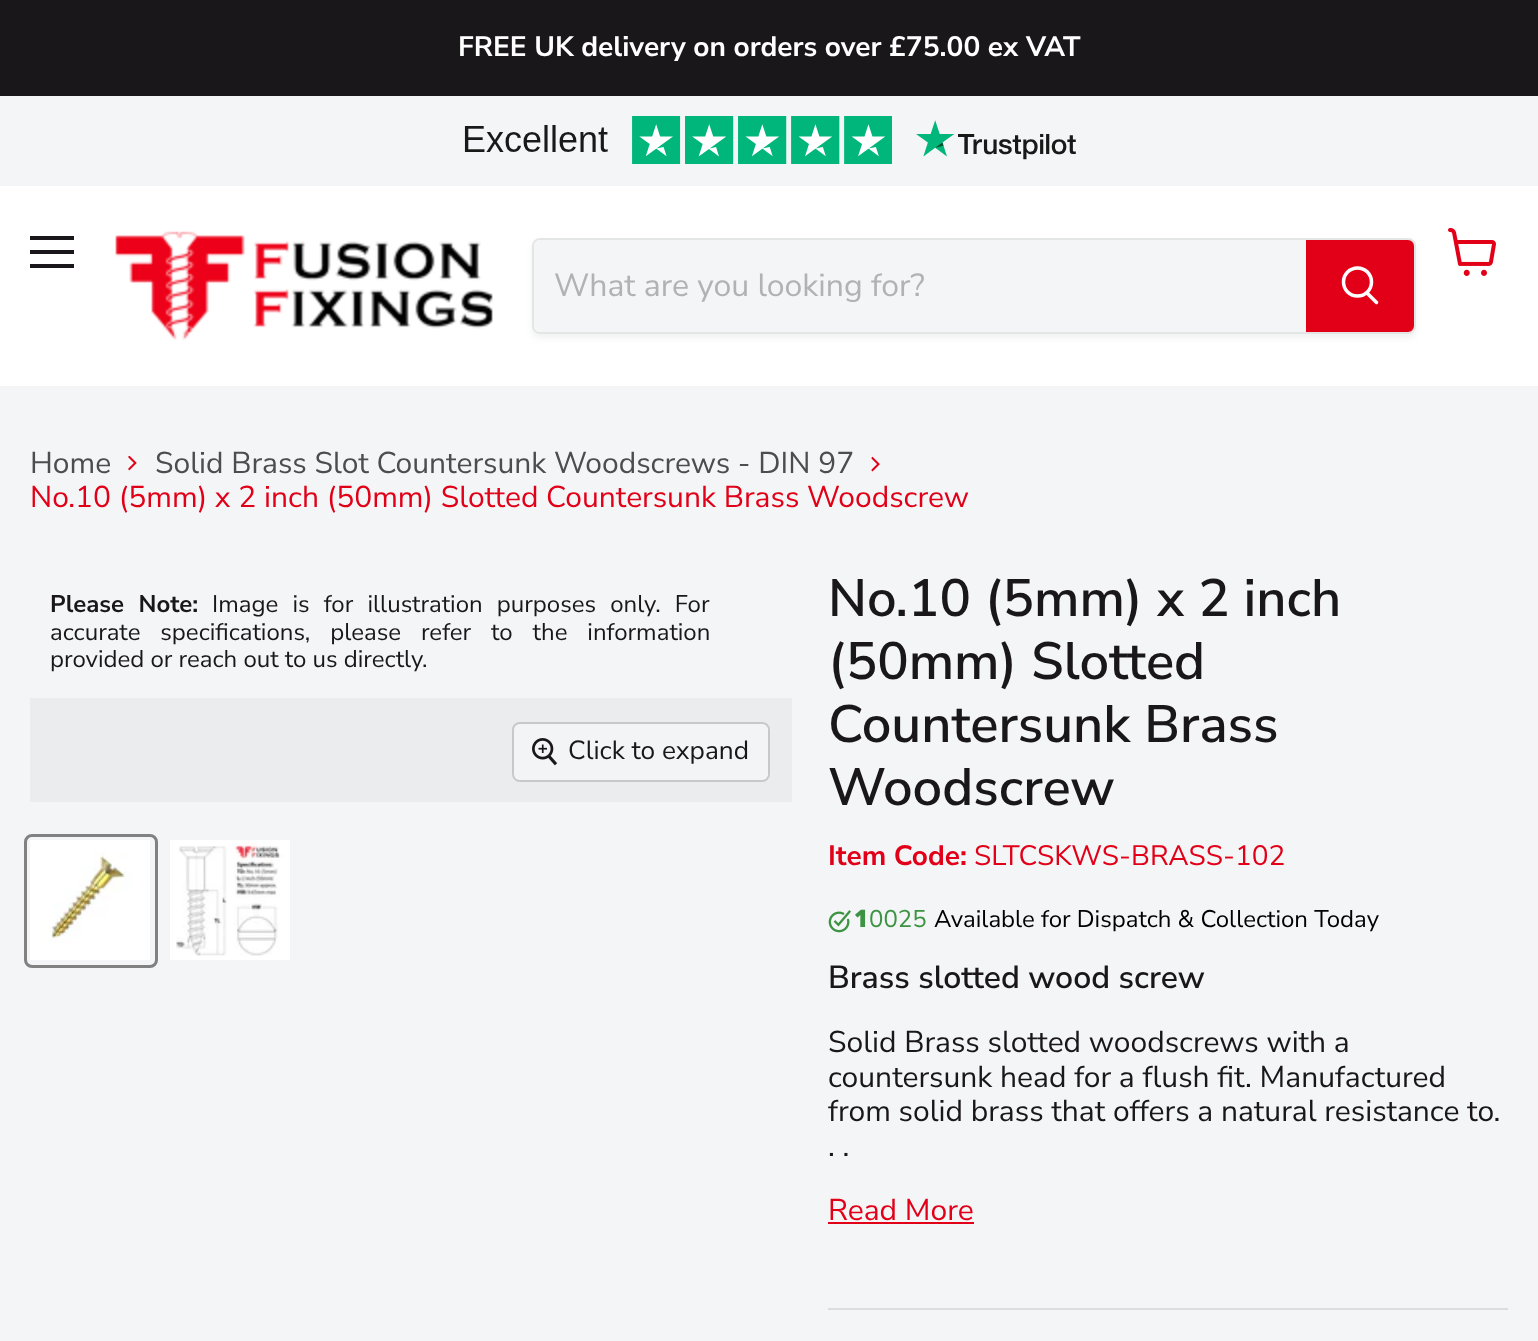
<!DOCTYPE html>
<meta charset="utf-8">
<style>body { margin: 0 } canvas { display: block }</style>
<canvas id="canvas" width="1538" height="1341"></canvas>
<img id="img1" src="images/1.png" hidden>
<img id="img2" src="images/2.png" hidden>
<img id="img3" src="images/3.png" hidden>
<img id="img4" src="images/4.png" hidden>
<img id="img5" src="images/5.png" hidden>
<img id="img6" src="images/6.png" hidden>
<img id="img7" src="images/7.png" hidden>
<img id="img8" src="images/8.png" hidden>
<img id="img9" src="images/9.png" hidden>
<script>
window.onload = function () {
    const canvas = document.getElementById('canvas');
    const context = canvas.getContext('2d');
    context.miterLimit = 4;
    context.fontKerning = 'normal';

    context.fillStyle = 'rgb(243, 245, 246)';
    context.fillRect(0, 0, 1538, 1341);
    context.fillStyle = 'rgb(26, 23, 27)';
    context.fillRect(0, 0, 1538, 96);
    context.drawImage(document.getElementById('img1'), 464, 116, 612, 48);
    context.fillStyle = 'rgb(255, 255, 255)';
    context.fillRect(0, 186, 1538, 200);
    context.fillStyle = 'rgb(26, 23, 27)';
    context.fillRect(30, 236, 44, 4);
    context.fillRect(30, 250, 44, 4);
    context.fillRect(30, 264, 44, 4);
    context.drawImage(document.getElementById('img2'), 1448, 228, 48, 48);
    context.drawImage(document.getElementById('img3'), 115, 231, 378, 110);
    context.save();
    context.beginPath();
    context.moveTo(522, 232);
    context.lineTo(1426, 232);
    context.lineTo(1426, 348);
    context.lineTo(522, 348);
    context.closePath();
    context.moveTo(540, 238);
    context.lineTo(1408, 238);
    context.bezierCurveTo(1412.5, 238, 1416, 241.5, 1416, 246);
    context.lineTo(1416, 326);
    context.bezierCurveTo(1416, 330.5, 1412.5, 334, 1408, 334);
    context.lineTo(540, 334);
    context.bezierCurveTo(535.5, 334, 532, 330.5, 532, 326);
    context.lineTo(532, 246);
    context.bezierCurveTo(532, 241.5, 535.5, 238, 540, 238);
    context.closePath();
    context.clip('evenodd');
    context.fillStyle = 'rgba(122, 123, 123, 0.11)';
    context.filter = 'blur(3px)';
    context.beginPath();
    context.roundRect(532, 242, 884, 96, 8);
    context.fill();
    context.filter = 'none';
    context.restore();
    context.beginPath();
    context.roundRect(533, 239, 882, 94, 7);
    context.strokeStyle = 'rgba(122, 123, 123, 0.2)';
    context.lineWidth = 2;
    context.stroke();
    context.fillStyle = 'rgb(243, 245, 246)';
    context.beginPath();
    context.roundRect(534, 240, 772, 92, [6, 0, 0, 6]);
    context.fill();
    context.fillStyle = 'rgb(226, 0, 24)';
    context.beginPath();
    context.roundRect(1307, 241, 106, 90, [0, 5, 5, 0]);
    context.fill();
    context.strokeStyle = 'rgb(226, 0, 24)';
    context.stroke();
    context.beginPath();
    context.moveTo(1376.5, 302.5);
    context.lineTo(1367, 293);
    context.strokeStyle = 'rgb(255, 255, 255)';
    context.lineWidth = 3.5;
    context.lineCap = 'round';
    context.stroke();
    context.beginPath();
    context.arc(1357.5, 282, 14, 0, 2 * Math.PI);
    context.stroke();
    context.drawImage(document.getElementById('img4'), 128, 455, 9, 16);
    context.drawImage(document.getElementById('img5'), 871, 456, 9, 16);
    context.drawImage(document.getElementById('img6'), 828, 910, 23, 23);
    context.fillRect(828, 1222, 146, 2);
    context.fillStyle = 'rgb(221, 221, 221)';
    context.fillRect(828, 1308, 680, 2);
    context.fillStyle = 'rgb(234, 236, 237)';
    context.fillRect(30, 698, 762, 104);
    context.beginPath();
    context.roundRect(513, 723, 256, 58, 7);
    context.strokeStyle = 'rgb(199, 201, 201)';
    context.lineWidth = 2;
    context.stroke();
    context.fillStyle = 'rgba(243, 245, 246, 0.9)';
    context.beginPath();
    context.roundRect(514, 724, 254, 56, 6);
    context.fill();
    context.drawImage(document.getElementById('img7'), 532, 738, 26, 28);
    context.beginPath();
    context.roundRect(25.5, 835.5, 131, 131, 6.5);
    context.strokeStyle = 'rgb(129, 129, 129)';
    context.lineWidth = 3;
    context.stroke();
    context.drawImage(document.getElementById('img8'), 30, 840, 120, 120);
    context.drawImage(document.getElementById('img9'), 170, 840, 120, 120);
    context.font = 'bold 28.1px Nunito Sans';
    context.fillStyle = 'rgb(255, 255, 255)';
    context.fillText('FREE UK delivery on orders over £75.00 ex VAT', 458, 56);
    context.font = '32px Nunito Sans';
    context.fillStyle = 'rgb(177, 178, 178)';
    context.fillText('What are you looking for?', 554, 296);
    context.font = '30px Nunito Sans';
    context.fillStyle = 'rgb(77, 77, 77)';
    context.fillText('Home', 30, 473);
    context.fillText('Solid Brass Slot Countersunk Woodscrews - DIN 97', 155, 473);
    context.fillStyle = 'rgb(226, 0, 24)';
    context.fillText('No.10 (5mm) x 2 inch (50mm) Slotted Countersunk Brass Woodscrew', 30, 507);
    context.wordSpacing = '8px';
    context.font = 'bold 24px Nunito Sans';
    context.fillStyle = 'rgb(26, 23, 27)';
    context.fillText('Please Note:', 50, 612);
    context.font = '24px Nunito Sans';
    context.fillText('Image is for illustration purposes only. For', 212, 612);
    context.wordSpacing = '13.75px';
    context.fillText('accurate specifications, please refer to the information', 50, 640);
    context.wordSpacing = '0px';
    context.fillText('provided or reach out to us directly.', 50, 667);
    context.font = '600 52.5px Nunito Sans';
    context.fillText('No.10 (5mm) x 2 inch', 828, 616);
    context.fillText('(50mm) Slotted', 828, 679);
    context.fillText('Countersunk Brass', 828, 742);
    context.fillText('Woodscrew', 828, 805);
    context.font = 'bold 28px Nunito Sans';
    context.fillStyle = 'rgb(226, 0, 24)';
    context.fillText('Item Code:', 828, 865);
    context.font = '28px Nunito Sans';
    context.fillText('SLTCSKWS-BRASS-102', 974, 865);
    context.font = '900 24px Noto Sans';
    context.fillStyle = 'rgb(60, 147, 66)';
    context.fillText('1', 854, 927);
    context.font = '24px Nunito Sans';
    context.fillText('0025', 869, 927);
    context.fillStyle = 'rgb(0, 0, 0)';
    context.fillText('Available for Dispatch & Collection Today', 934, 927);
    context.font = '600 32px Nunito Sans';
    context.fillStyle = 'rgb(26, 23, 27)';
    context.fillText('Brass slotted wood screw', 828, 988);
    context.font = '30px Nunito Sans';
    context.fillText('Solid Brass slotted woodscrews with a', 828, 1052);
    context.fillText('countersunk head for a flush fit. Manufactured', 828, 1087);
    context.fillText('from solid brass that offers a natural resistance to.', 828, 1121);
    context.fillText('. .', 828, 1156);
    context.fillStyle = 'rgb(226, 0, 24)';
    context.fillText('Read More', 828, 1220);
    context.font = '26.25px Nunito Sans';
    context.fillStyle = 'rgb(26, 23, 27)';
    context.fillText('Click to expand', 568, 759);
};
</script>
